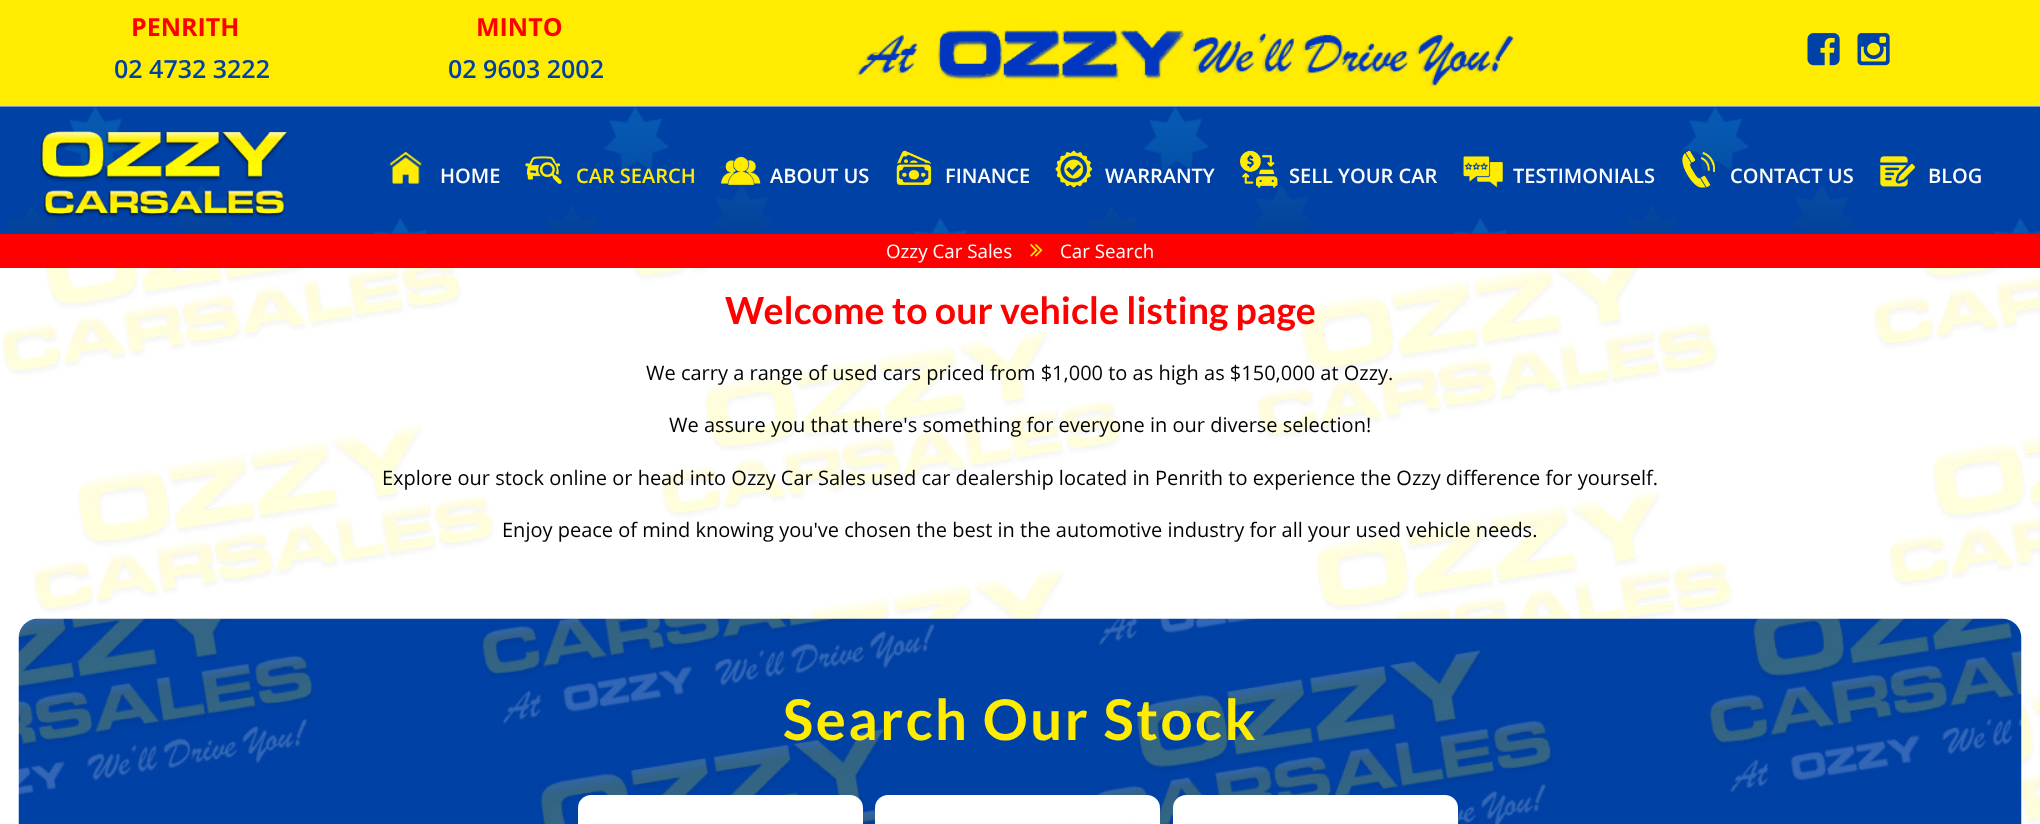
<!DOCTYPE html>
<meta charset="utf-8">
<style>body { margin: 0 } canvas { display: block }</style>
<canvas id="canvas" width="2040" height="824"></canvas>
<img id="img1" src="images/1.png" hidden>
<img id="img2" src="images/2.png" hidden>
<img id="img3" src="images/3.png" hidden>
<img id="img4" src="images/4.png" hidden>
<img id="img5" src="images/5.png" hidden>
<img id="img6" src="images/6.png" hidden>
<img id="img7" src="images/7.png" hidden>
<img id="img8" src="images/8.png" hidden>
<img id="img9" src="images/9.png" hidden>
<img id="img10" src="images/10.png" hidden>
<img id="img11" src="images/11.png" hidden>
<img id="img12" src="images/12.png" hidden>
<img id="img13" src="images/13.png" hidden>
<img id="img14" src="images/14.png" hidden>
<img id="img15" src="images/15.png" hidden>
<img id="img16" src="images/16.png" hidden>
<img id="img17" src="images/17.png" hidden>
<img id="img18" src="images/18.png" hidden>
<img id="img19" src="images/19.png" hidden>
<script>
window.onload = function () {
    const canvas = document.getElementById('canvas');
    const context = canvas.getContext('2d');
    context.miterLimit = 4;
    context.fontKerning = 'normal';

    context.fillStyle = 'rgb(255, 255, 255)';
    context.fillRect(0, 0, 2040, 824);
    context.drawImage(document.getElementById('img1'), 2, 268, 2038, 556);
    context.fillStyle = 'rgb(255, 236, 0)';
    context.fillRect(0, 0, 2040, 106);
    context.drawImage(document.getElementById('img2'), 856, 29, 658, 58);
    context.drawImage(document.getElementById('img3'), 1807, 33, 33, 33);
    context.drawImage(document.getElementById('img4'), 1857, 33, 33, 33);
    context.fillStyle = 'rgb(0, 65, 165)';
    context.fillRect(0, 107, 2040, 127);
    context.drawImage(document.getElementById('img5'), 6, 107, 2034, 127);
    context.fillStyle = 'rgb(117, 152, 206)';
    context.fillRect(0, 106, 2040, 1);
    context.drawImage(document.getElementById('img6'), 40, 131, 247, 87);
    context.drawImage(document.getElementById('img7'), 390, 151, 32, 33);
    context.drawImage(document.getElementById('img8'), 525, 156, 37, 28);
    context.drawImage(document.getElementById('img9'), 720, 156, 41, 29);
    context.drawImage(document.getElementById('img10'), 896, 150, 36, 35);
    context.drawImage(document.getElementById('img11'), 1055, 150, 38, 38);
    context.drawImage(document.getElementById('img12'), 1240, 150, 38, 38);
    context.drawImage(document.getElementById('img13'), 1463, 156, 40, 32);
    context.drawImage(document.getElementById('img14'), 1682, 150, 33, 38);
    context.drawImage(document.getElementById('img15'), 1880, 156, 35, 31);
    context.fillStyle = 'rgb(255, 0, 0)';
    context.fillRect(0, 234, 2040, 34);
    context.drawImage(document.getElementById('img16'), 1030, 244, 13, 13);
    context.drawImage(document.getElementById('img17'), 18, 618, 2004, 206);
    context.fillStyle = 'rgb(255, 255, 255)';
    context.beginPath();
    context.roundRect(578, 795, 285, 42, 13);
    context.fill();
    context.drawImage(document.getElementById('img18'), 834, 823, 12, 1);
    context.beginPath();
    context.roundRect(875, 795, 285, 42, 13);
    context.fill();
    context.drawImage(document.getElementById('img19'), 1131, 823, 13, 1);
    context.beginPath();
    context.roundRect(1173, 795, 285, 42, 13);
    context.fill();
    context.drawImage(document.getElementById('img18'), 1429, 823, 12, 1);
    context.font = 'bold 25px Open Sans';
    context.fillStyle = 'rgb(255, 0, 0)';
    context.fillText('PENRITH', 131, 36);
    context.font = '600 25px Open Sans';
    context.fillStyle = 'rgb(0, 65, 165)';
    context.fillText('02 4732 3222', 114, 78);
    context.font = 'bold 25px Open Sans';
    context.fillStyle = 'rgb(255, 0, 0)';
    context.fillText('MINTO', 476, 36);
    context.font = '600 25px Open Sans';
    context.fillStyle = 'rgb(0, 65, 165)';
    context.fillText('02 9603 2002', 448, 78);
    context.font = '600 20px Open Sans';
    context.fillStyle = 'rgb(255, 255, 255)';
    context.fillText('HOME', 440, 183);
    context.fillStyle = 'rgb(255, 236, 0)';
    context.fillText('CAR SEARCH', 576, 183);
    context.fillStyle = 'rgb(255, 255, 255)';
    context.fillText('ABOUT US', 770, 183);
    context.fillText('FINANCE', 945, 183);
    context.fillText('WARRANTY', 1105, 183);
    context.fillText('SELL YOUR CAR', 1289, 183);
    context.fillText('TESTIMONIALS', 1513, 183);
    context.fillText('CONTACT US', 1730, 183);
    context.fillText('BLOG', 1928, 183);
    context.font = '18.75px Open Sans';
    context.fillText('Ozzy Car Sales', 886, 258);
    context.fillText('Car Search', 1060, 258);
    context.font = 'bold 37.5px Lato';
    context.fillStyle = 'rgb(255, 0, 0)';
    context.fillText('Welcome to our vehicle listing page', 725, 324);
    context.font = '20px Open Sans';
    context.fillStyle = 'rgb(0, 0, 0)';
    context.fillText('We carry a range of used cars priced from $1,000 to as high as $150,000 at Ozzy.', 646, 380);
    context.fillText('We assure you that there\'s something for everyone in our diverse selection!', 669, 432);
    context.fillText('Explore our stock online or head into Ozzy Car Sales used car dealership located in Penrith to experience the Ozzy difference for yourself.', 382, 485);
    context.fillText('Enjoy peace of mind knowing you\'ve chosen the best in the automotive industry for all your used vehicle needs.', 502, 537);
    context.letterSpacing = '2.5px';
    context.font = 'bold 56.25px Lato';
    context.fillStyle = 'rgb(255, 236, 0)';
    context.fillText('Search Our Stock', 783, 740);
};
</script>
